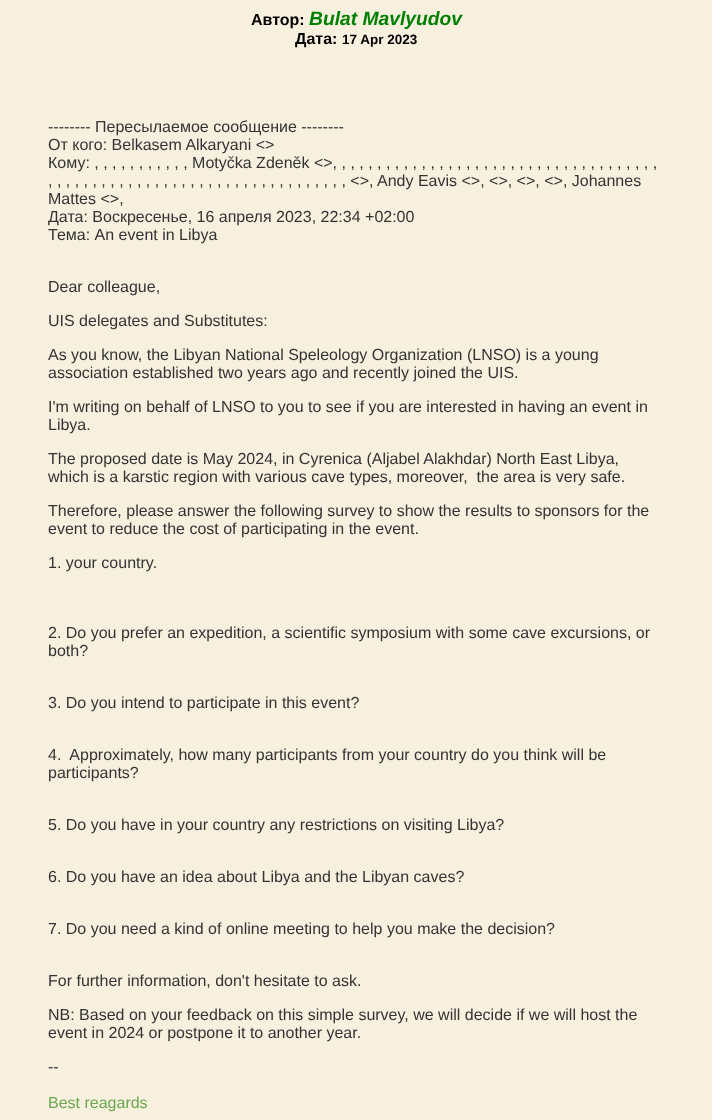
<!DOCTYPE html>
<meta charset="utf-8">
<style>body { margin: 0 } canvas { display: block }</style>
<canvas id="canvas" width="712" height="1120"></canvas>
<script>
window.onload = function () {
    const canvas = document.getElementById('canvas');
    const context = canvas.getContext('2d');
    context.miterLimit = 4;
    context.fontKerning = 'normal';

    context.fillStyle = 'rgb(247, 240, 223)';
    context.fillRect(0, 0, 712, 1120);
    context.font = 'bold 16px Liberation Sans';
    context.fillStyle = 'rgb(0, 0, 0)';
    context.fillText('Автор:', 251, 25);
    context.font = 'italic bold 19.25px Liberation Sans';
    context.fillStyle = 'rgb(0, 128, 0)';
    context.fillText('Bulat Mavlyudov', 309, 25);
    context.font = 'bold 16px Liberation Sans';
    context.fillStyle = 'rgb(0, 0, 0)';
    context.fillText('Дата:', 295, 44);
    context.font = 'bold 13.5px Liberation Sans';
    context.fillText('17 Apr 2023', 342, 44);
    context.font = '16px Liberation Sans';
    context.fillStyle = 'rgb(51, 51, 51)';
    context.fillText('-------- Пересылаемое сообщение --------', 48, 132);
    context.fillText('От кого: Belkasem Alkaryani <>', 48, 150);
    context.fillText('Кому: , , , , , , , , , , , Motyčka Zdeněk <>, , , , , , , , , , , , , , , , , , , , , , , , , , , , , , , , , , , , ,', 48, 168);
    context.fillText(', , , , , , , , , , , , , , , , , , , , , , , , , , , , , , , , , , <>, Andy Eavis <>, <>, <>, <>, Johannes', 48, 186);
    context.fillText('Mattes <>,', 48, 204);
    context.fillText('Дата: Воскресенье, 16 апреля 2023, 22:34 +02:00', 48, 222);
    context.fillText('Тема: An event in Libya', 48, 240);
    context.fillText('Dear colleague,', 48, 292);
    context.fillText('UIS delegates and Substitutes:', 48, 326);
    context.fillText('As you know, the Libyan National Speleology Organization (LNSO) is a young', 48, 360);
    context.fillText('association established two years ago and recently joined the UIS.', 48, 378);
    context.fillText('I\'m writing on behalf of LNSO to you to see if you are interested in having an event in', 48, 412);
    context.fillText('Libya.', 48, 430);
    context.fillText('The proposed date is May 2024, in Cyrenica (Aljabel Alakhdar) North East Libya,', 48, 464);
    context.fillText('which is a karstic region with various cave types, moreover,  the area is very safe.', 48, 482);
    context.fillText('Therefore, please answer the following survey to show the results to sponsors for the', 48, 516);
    context.fillText('event to reduce the cost of participating in the event.', 48, 534);
    context.fillText('1. your country.', 48, 568);
    context.fillText('2. Do you prefer an expedition, a scientific symposium with some cave excursions, or', 48, 638);
    context.fillText('both?', 48, 656);
    context.fillText('3. Do you intend to participate in this event?', 48, 708);
    context.fillText('4.  Approximately, how many participants from your country do you think will be', 48, 760);
    context.fillText('participants?', 48, 778);
    context.fillText('5. Do you have in your country any restrictions on visiting Libya?', 48, 830);
    context.fillText('6. Do you have an idea about Libya and the Libyan caves?', 48, 882);
    context.fillText('7. Do you need a kind of online meeting to help you make the decision?', 48, 934);
    context.fillText('For further information, don\'t hesitate to ask.', 48, 986);
    context.fillText('NB: Based on your feedback on this simple survey, we will decide if we will host the', 48, 1020);
    context.fillText('event in 2024 or postpone it to another year.', 48, 1038);
    context.fillText('--', 48, 1072);
    context.fillStyle = 'rgb(106, 168, 79)';
    context.fillText('Best reagards', 48, 1108);
};
</script>
